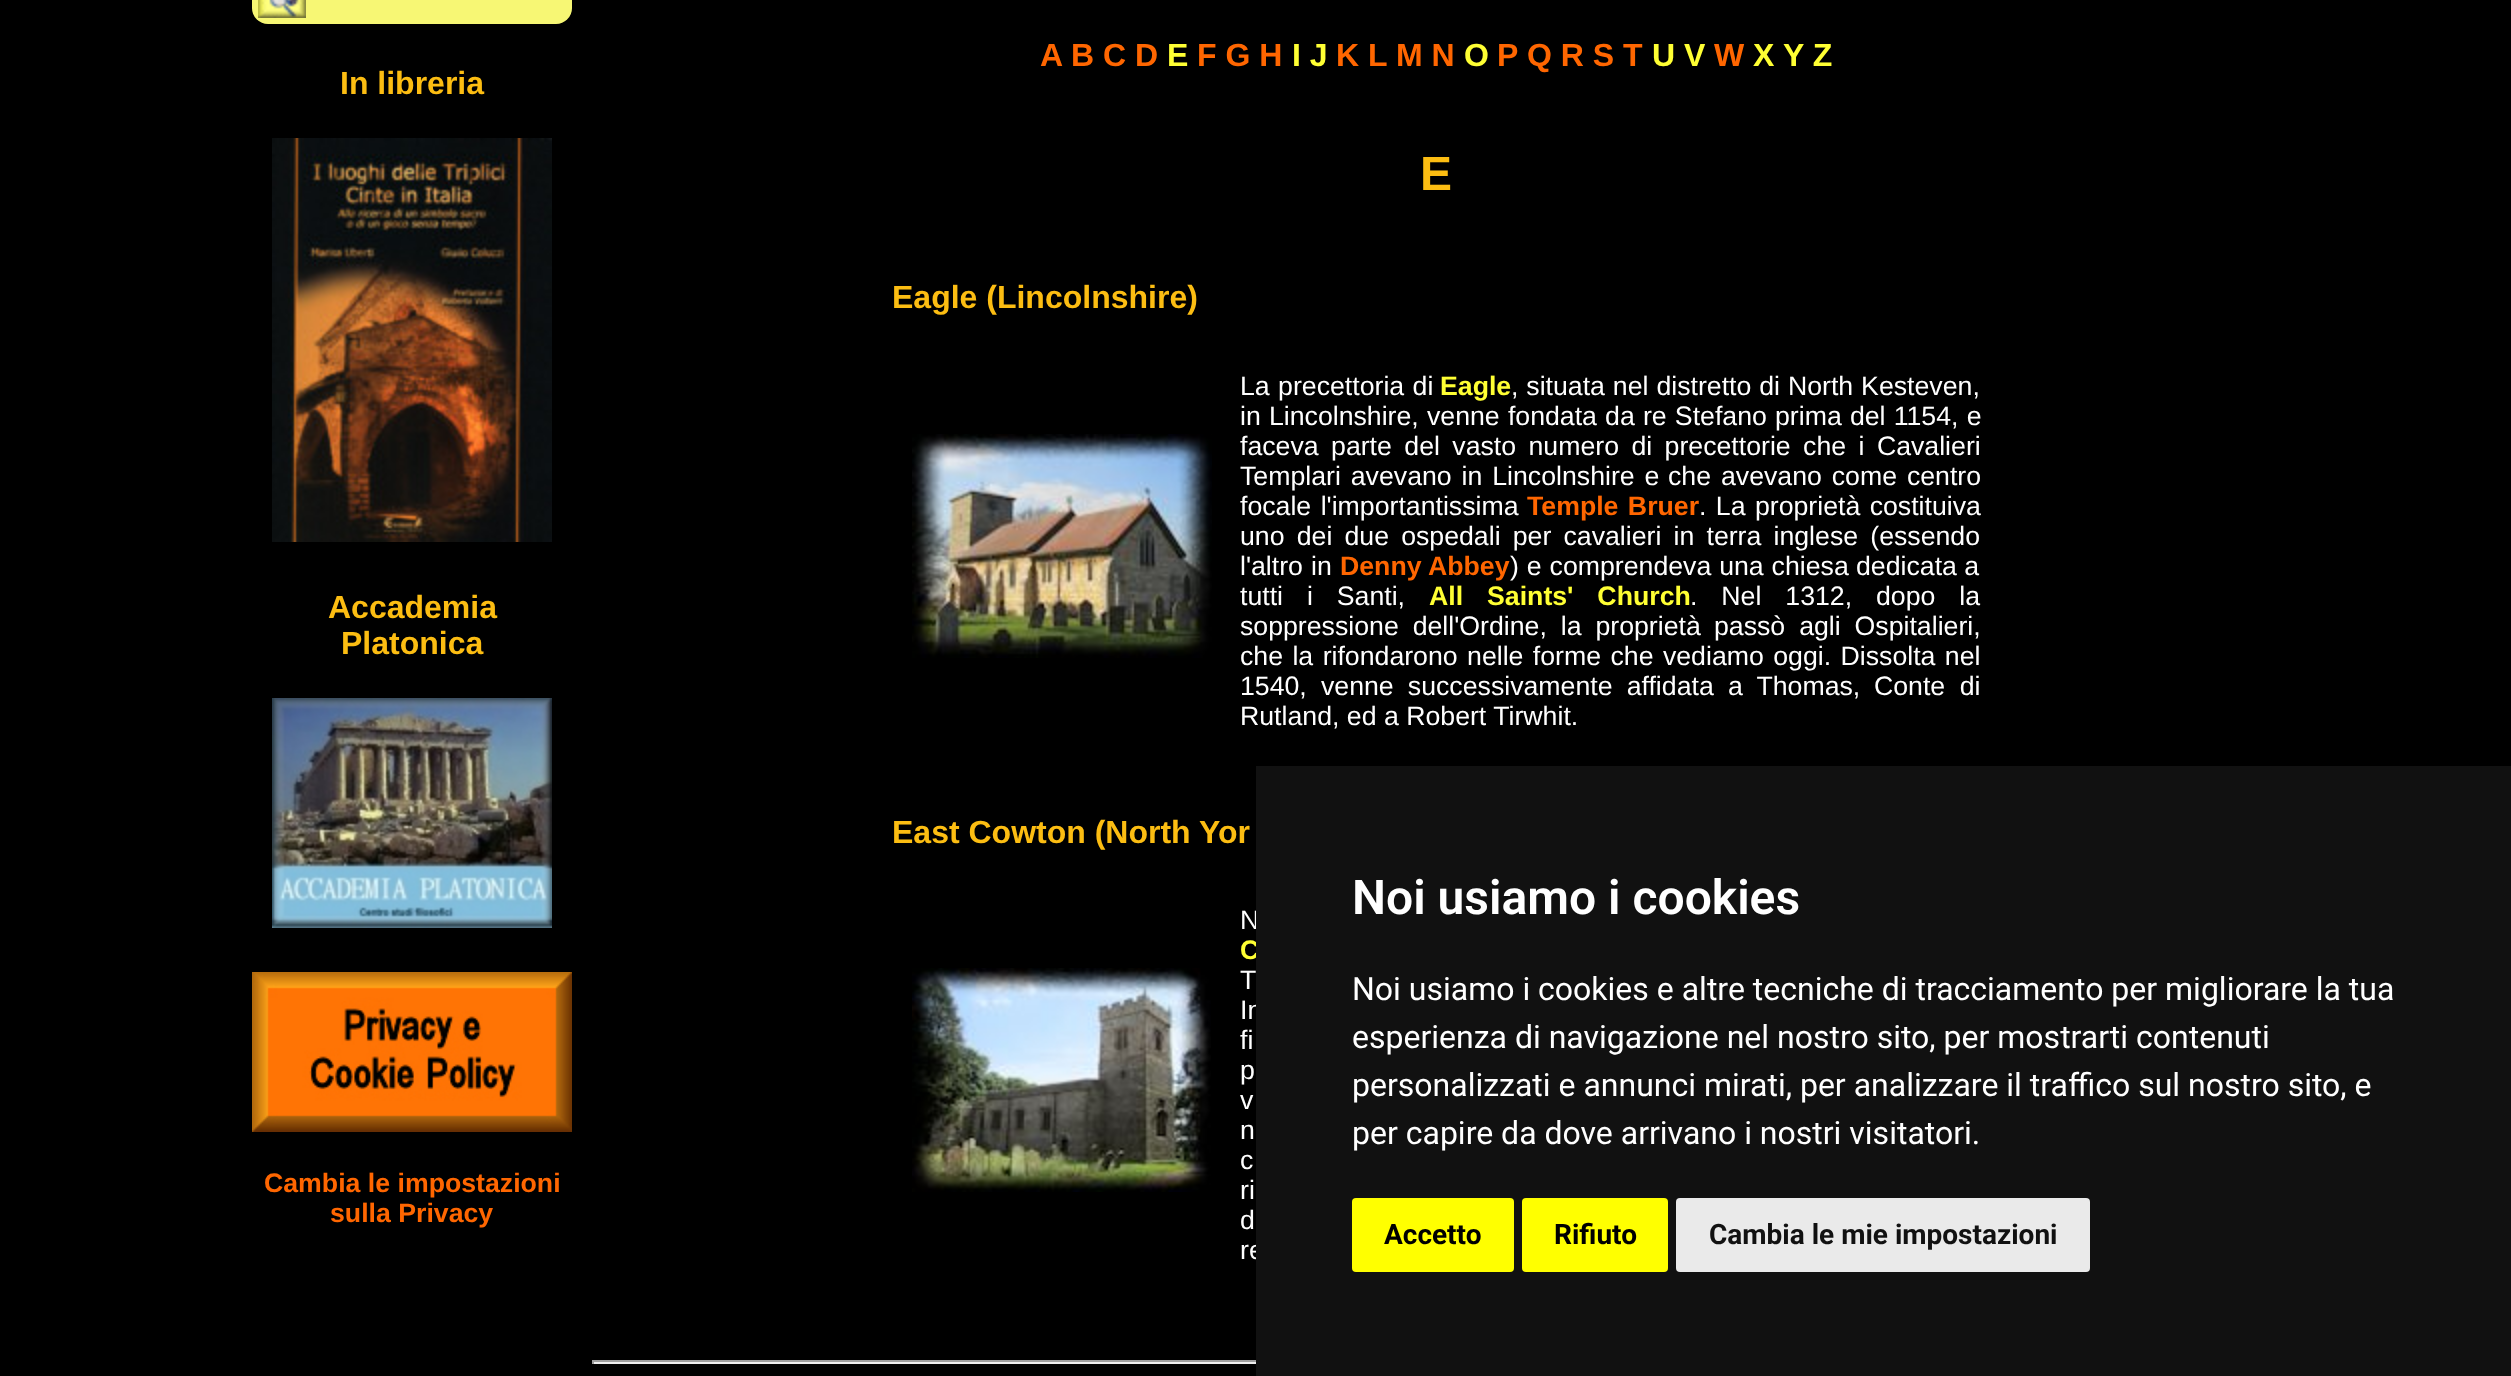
<!DOCTYPE html>
<meta charset="utf-8">
<style>body { margin: 0 } canvas { display: block }</style>
<canvas id="canvas" width="2511" height="1376"></canvas>
<img id="img1" src="images/1.png" hidden>
<img id="img2" src="images/2.png" hidden>
<img id="img3" src="images/3.png" hidden>
<img id="img4" src="images/4.png" hidden>
<img id="img5" src="images/5.png" hidden>
<img id="img6" src="images/6.png" hidden>
<script>
window.onload = function () {
    const canvas = document.getElementById('canvas');
    const context = canvas.getContext('2d');
    context.miterLimit = 4;
    context.fontKerning = 'normal';

    context.fillStyle = 'rgb(0, 0, 0)';
    context.fillRect(0, 0, 2511, 1376);
    context.fillStyle = 'rgb(247, 247, 116)';
    context.beginPath();
    context.roundRect(252, -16, 320, 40, 16);
    context.fill();
    context.drawImage(document.getElementById('img1'), 258, 0, 48, 18);
    context.drawImage(document.getElementById('img2'), 272, 138, 280, 404);
    context.drawImage(document.getElementById('img3'), 272, 698, 280, 230);
    context.drawImage(document.getElementById('img4'), 252, 972, 320, 160);
    context.drawImage(document.getElementById('img5'), 912, 434, 300, 224);
    context.drawImage(document.getElementById('img6'), 912, 968, 299, 224);
    context.fillStyle = 'rgb(159, 159, 159)';
    context.fillRect(592, 1360, 664, 2);
    context.fillStyle = 'rgb(238, 238, 238)';
    context.fillRect(592, 1362, 664, 2);
    context.fillStyle = 'rgb(159, 159, 159)';
    context.fillRect(592, 1360, 2, 4);
    context.font = 'bold 32px Liberation Sans';
    context.fillStyle = 'rgb(252, 189, 18)';
    context.fillText('In libreria', 340, 94);
    context.fillText('Accademia', 328, 618);
    context.fillText('Platonica', 341, 654);
    context.font = 'bold 26.7px Liberation Sans';
    context.fillStyle = 'rgb(255, 102, 0)';
    context.fillText('Cambia le impostazioni', 264, 1192);
    context.fillText('sulla Privacy', 330, 1222);
    context.font = 'bold 32px Liberation Sans';
    context.fillText('A', 1040, 66);
    context.fillText('B C D', 1071, 66);
    context.fillStyle = 'rgb(255, 255, 51)';
    context.fillText('E', 1167, 66);
    context.fillStyle = 'rgb(255, 102, 0)';
    context.fillText('F G H', 1197, 66);
    context.fillStyle = 'rgb(255, 255, 51)';
    context.fillText('I J', 1292, 66);
    context.fillStyle = 'rgb(255, 102, 0)';
    context.fillText('K L', 1336, 66);
    context.fillText('M N', 1396, 66);
    context.fillStyle = 'rgb(255, 255, 51)';
    context.fillText('O', 1464, 66);
    context.fillStyle = 'rgb(255, 102, 0)';
    context.fillText('P', 1497, 66);
    context.fillText('Q R S T', 1527, 66);
    context.fillStyle = 'rgb(255, 255, 51)';
    context.fillText('U V', 1652, 66);
    context.fillStyle = 'rgb(255, 102, 0)';
    context.fillText('W', 1714, 66);
    context.fillStyle = 'rgb(255, 255, 51)';
    context.fillText('X', 1753, 66);
    context.fillText('Y Z', 1783, 66);
    context.font = 'bold 48px Liberation Sans';
    context.fillStyle = 'rgb(252, 189, 18)';
    context.fillText('E', 1420, 190);
    context.font = 'bold 32px Liberation Sans';
    context.fillText('Eagle (Lincolnshire)', 892, 308);
    context.wordSpacing = '1px';
    context.font = '26.7px Liberation Sans';
    context.fillStyle = 'rgb(255, 255, 255)';
    context.fillText('La precettoria di', 1240, 395);
    context.wordSpacing = '0px';
    context.font = 'bold 26.7px Liberation Sans';
    context.fillStyle = 'rgb(255, 255, 51)';
    context.fillText('Eagle', 1440, 395);
    context.wordSpacing = '0.5px';
    context.font = '26.7px Liberation Sans';
    context.fillStyle = 'rgb(255, 255, 255)';
    context.fillText(', situata nel distretto di North Kesteven,', 1511, 395);
    context.wordSpacing = '0.75px';
    context.fillText('in Lincolnshire,', 1240, 425);
    context.fillText('venne fondata da re Stefano prima del 1154, e', 1427, 425);
    context.wordSpacing = '5px';
    context.fillText('faceva parte del vasto numero di precettorie che i Cavalieri', 1240, 455);
    context.wordSpacing = '2.5px';
    context.fillText('Templari avevano in Lincolnshire e', 1240, 485);
    context.fillText('che avevano come centro', 1668, 485);
    context.wordSpacing = '2px';
    context.fillText('focale l\'importantissima', 1240, 515);
    context.font = 'bold 26.7px Liberation Sans';
    context.fillStyle = 'rgb(255, 102, 0)';
    context.fillText('Temple Bruer', 1527, 515);
    context.font = '26.7px Liberation Sans';
    context.fillStyle = 'rgb(255, 255, 255)';
    context.fillText('. La proprietà costituiva', 1699, 515);
    context.wordSpacing = '4.75px';
    context.fillText('uno dei due ospedali per cavalieri in terra inglese (essendo', 1240, 545);
    context.wordSpacing = '0px';
    context.fillText('l\'altro', 1240, 575);
    context.fillText('in', 1311, 575);
    context.font = 'bold 26.7px Liberation Sans';
    context.fillStyle = 'rgb(255, 102, 0)';
    context.fillText('Denny Abbey', 1340, 575);
    context.wordSpacing = '0.5px';
    context.font = '26.7px Liberation Sans';
    context.fillStyle = 'rgb(255, 255, 255)';
    context.fillText(') e comprendeva una chiesa', 1510, 575);
    context.wordSpacing = '0px';
    context.fillText('dedicata a', 1856, 575);
    context.wordSpacing = '16.5px';
    context.fillText('tutti i Santi,', 1240, 605);
    context.font = 'bold 26.7px Liberation Sans';
    context.fillStyle = 'rgb(255, 255, 51)';
    context.fillText('All Saints\' Church', 1429, 605);
    context.font = '26.7px Liberation Sans';
    context.fillStyle = 'rgb(255, 255, 255)';
    context.fillText('. Nel 1312, dopo la', 1690, 605);
    context.wordSpacing = '6.5px';
    context.fillText('soppressione dell\'Ordine, la proprietà', 1240, 635);
    context.fillText('passò agli Ospitalieri,', 1714, 635);
    context.wordSpacing = '2px';
    context.fillText('che la rifondarono nelle forme che vediamo oggi. Dissolta nel', 1240, 665);
    context.wordSpacing = '6.75px';
    context.fillText('1540, venne successivamente affidata a Thomas,', 1240, 695);
    context.wordSpacing = '7px';
    context.fillText('Conte di', 1874, 695);
    context.wordSpacing = '0px';
    context.fillText('Rutland, ed a Robert Tirwhit.', 1240, 725);
    context.font = 'bold 32px Liberation Sans';
    context.fillStyle = 'rgb(252, 189, 18)';
    context.fillText('East Cowton (North Yor', 892, 843);
    context.wordSpacing = '6.75px';
    context.font = '26.7px Liberation Sans';
    context.fillStyle = 'rgb(255, 255, 255)';
    context.fillText('N', 1240, 929);
    context.wordSpacing = '0px';
    context.font = 'bold 26.7px Liberation Sans';
    context.fillStyle = 'rgb(255, 255, 51)';
    context.fillText('C', 1240, 959);
    context.wordSpacing = '4px';
    context.font = '26.7px Liberation Sans';
    context.fillStyle = 'rgb(255, 255, 255)';
    context.fillText('T', 1240, 989);
    context.wordSpacing = '2px';
    context.fillText('In', 1240, 1019);
    context.wordSpacing = '1px';
    context.fillText('fi', 1240, 1049);
    context.fillText('p', 1240, 1079);
    context.wordSpacing = '0px';
    context.fillText('v', 1240, 1109);
    context.wordSpacing = '18px';
    context.fillText('n', 1240, 1139);
    context.wordSpacing = '9px';
    context.fillText('c', 1240, 1169);
    context.fillText('ri', 1240, 1199);
    context.wordSpacing = '0px';
    context.fillText('d', 1240, 1229);
    context.fillText('re', 1240, 1259);
    context.fillStyle = 'rgb(17, 17, 17)';
    context.fillRect(1256, 766, 1255, 610);
    context.font = '600 48px Roboto';
    context.fillStyle = 'rgb(255, 255, 255)';
    context.fillText('Noi usiamo i cookies', 1352, 914);
    context.font = '32px Roboto';
    context.fillText('Noi usiamo i cookies e altre tecniche di tracciamento per migliorare la tua', 1352, 1000);
    context.fillText('esperienza di navigazione nel nostro sito, per mostrarti contenuti', 1352, 1048);
    context.fillText('personalizzati e annunci mirati, per analizzare il traffico sul nostro sito, e', 1352, 1096);
    context.fillText('per capire da dove arrivano i nostri visitatori.', 1352, 1144);
    context.fillStyle = 'rgb(255, 255, 0)';
    context.beginPath();
    context.roundRect(1352, 1198, 162, 74, 4);
    context.fill();
    context.font = 'bold 28px Roboto';
    context.fillStyle = 'rgb(0, 0, 0)';
    context.fillText('Accetto', 1384, 1244);
    context.fillStyle = 'rgb(255, 255, 0)';
    context.beginPath();
    context.roundRect(1522, 1198, 146, 74, 4);
    context.fill();
    context.fillStyle = 'rgb(0, 0, 0)';
    context.fillText('Rifiuto', 1554, 1244);
    context.fillStyle = 'rgb(234, 234, 234)';
    context.beginPath();
    context.roundRect(1676, 1198, 414, 74, 4);
    context.fill();
    context.fillStyle = 'rgb(17, 17, 17)';
    context.fillText('Cambia le mie impostazioni', 1709, 1244);
};
</script>
